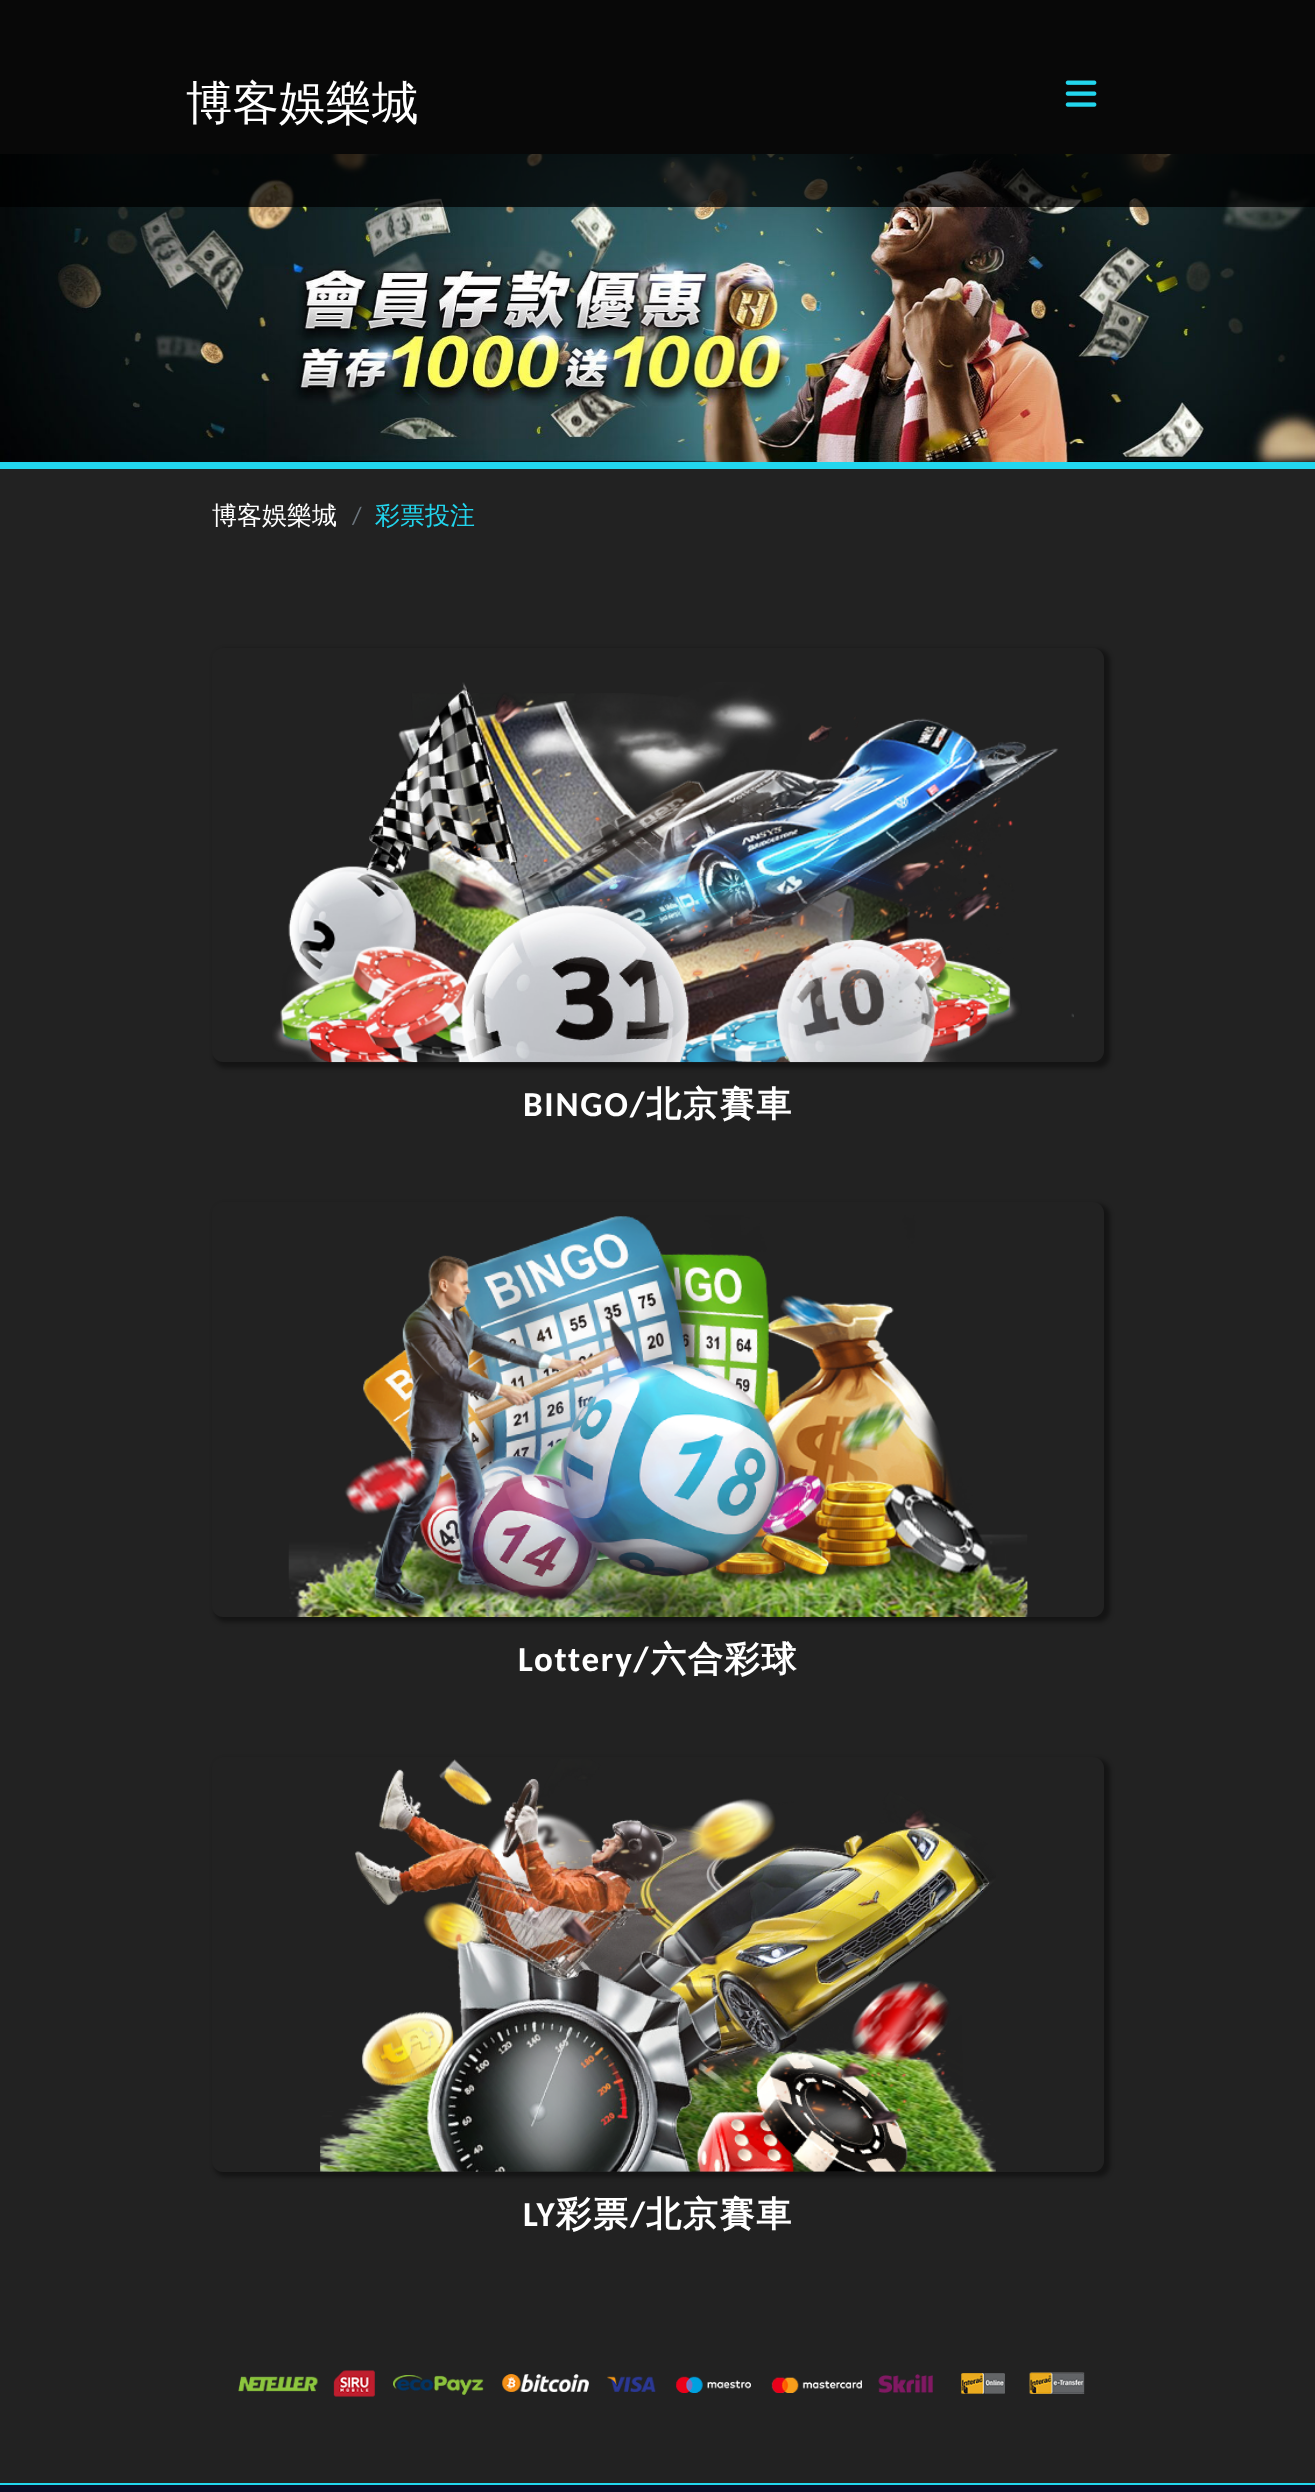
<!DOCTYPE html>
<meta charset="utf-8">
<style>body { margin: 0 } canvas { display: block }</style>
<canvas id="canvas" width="1315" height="2492"></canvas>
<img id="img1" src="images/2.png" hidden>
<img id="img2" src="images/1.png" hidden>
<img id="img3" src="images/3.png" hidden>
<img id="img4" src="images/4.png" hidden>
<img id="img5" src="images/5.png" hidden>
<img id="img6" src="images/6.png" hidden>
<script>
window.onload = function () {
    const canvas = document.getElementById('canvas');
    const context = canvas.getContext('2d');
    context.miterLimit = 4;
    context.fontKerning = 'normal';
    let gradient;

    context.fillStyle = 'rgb(34, 34, 34)';
    context.fillRect(0, 0, 1315, 2492);
    context.drawImage(document.getElementById('img1'), 0, 154, 1315, 308);
    context.fillStyle = 'rgba(0, 0, 0, 0.75)';
    context.fillRect(0, 0, 1315, 207);
    context.drawImage(document.getElementById('img2'), 1065, 80, 32, 27);
    context.fillStyle = 'rgb(34, 214, 238)';
    context.fillRect(0, 462, 1315, 7);
    context.save();
    context.beginPath();
    context.moveTo(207, 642);
    context.lineTo(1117, 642);
    context.lineTo(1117, 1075);
    context.lineTo(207, 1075);
    context.closePath();
    context.moveTo(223, 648);
    context.lineTo(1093, 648);
    context.bezierCurveTo(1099, 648, 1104, 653, 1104, 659);
    context.lineTo(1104, 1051);
    context.bezierCurveTo(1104, 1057, 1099, 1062, 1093, 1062);
    context.lineTo(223, 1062);
    context.bezierCurveTo(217, 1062, 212, 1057, 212, 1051);
    context.lineTo(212, 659);
    context.bezierCurveTo(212, 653, 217, 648, 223, 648);
    context.closePath();
    context.clip('evenodd');
    context.fillStyle = 'rgba(0, 0, 0, 0.4)';
    context.filter = 'blur(2px)';
    context.beginPath();
    context.roundRect(214, 649, 896, 419, 12);
    context.fill();
    context.filter = 'none';
    context.restore();
    context.drawImage(document.getElementById('img3'), 272, 682, 802, 381);
    context.save();
    context.beginPath();
    context.moveTo(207, 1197);
    context.lineTo(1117, 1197);
    context.lineTo(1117, 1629);
    context.lineTo(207, 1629);
    context.closePath();
    context.moveTo(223, 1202);
    context.lineTo(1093, 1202);
    context.bezierCurveTo(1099, 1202, 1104, 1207, 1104, 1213);
    context.lineTo(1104, 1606);
    context.bezierCurveTo(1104, 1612, 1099, 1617, 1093, 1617);
    context.lineTo(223, 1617);
    context.bezierCurveTo(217, 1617, 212, 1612, 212, 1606);
    context.lineTo(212, 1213);
    context.bezierCurveTo(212, 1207, 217, 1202, 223, 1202);
    context.closePath();
    context.clip('evenodd');
    context.fillStyle = 'rgba(0, 0, 0, 0.4)';
    context.filter = 'blur(2px)';
    context.beginPath();
    context.roundRect(214, 1204, 896, 418, 12);
    context.fill();
    context.filter = 'none';
    context.restore();
    context.drawImage(document.getElementById('img4'), 288, 1215, 740, 402);
    context.save();
    context.beginPath();
    context.moveTo(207, 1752);
    context.lineTo(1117, 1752);
    context.lineTo(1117, 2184);
    context.lineTo(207, 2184);
    context.closePath();
    context.moveTo(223, 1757);
    context.lineTo(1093, 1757);
    context.bezierCurveTo(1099, 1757, 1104, 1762, 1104, 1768);
    context.lineTo(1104, 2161);
    context.bezierCurveTo(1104, 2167, 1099, 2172, 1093, 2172);
    context.lineTo(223, 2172);
    context.bezierCurveTo(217, 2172, 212, 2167, 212, 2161);
    context.lineTo(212, 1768);
    context.bezierCurveTo(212, 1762, 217, 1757, 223, 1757);
    context.closePath();
    context.clip('evenodd');
    context.fillStyle = 'rgba(0, 0, 0, 0.4)';
    context.filter = 'blur(2px)';
    context.beginPath();
    context.roundRect(214, 1759, 896, 418, 12);
    context.fill();
    context.filter = 'none';
    context.restore();
    context.drawImage(document.getElementById('img5'), 320, 1759, 676, 413);
    context.drawImage(document.getElementById('img6'), 238, 2370, 847, 27);
    gradient = context.createLinearGradient(658, 2485, 658, 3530);
    gradient.addColorStop(0, 'rgb(10, 14, 39)');
    gradient.addColorStop(1, 'rgb(17, 17, 17)');
    context.fillStyle = gradient;
    context.fillRect(0, 2485, 1315, 7);
    context.fillStyle = 'rgb(34, 214, 238)';
    context.fillRect(0, 2483, 1315, 2);
    context.font = '500 46.5px WenQuanYi Zen Hei';
    context.fillStyle = 'rgb(255, 255, 255)';
    context.fillText('博客娛樂城', 186, 119);
    context.font = '500 25px WenQuanYi Zen Hei';
    context.fillText('博客娛樂城', 212, 524);
    context.font = '25px Carlito';
    context.fillStyle = 'rgb(108, 117, 125)';
    context.fillText('/', 352, 524);
    context.font = '500 25px WenQuanYi Zen Hei';
    context.fillStyle = 'rgb(34, 214, 238)';
    context.fillText('彩票投注', 375, 524);
    context.letterSpacing = '1.75px';
    context.font = 'bold 35px Carlito';
    context.fillStyle = 'rgb(255, 255, 255)';
    context.fillText('BINGO/', 523, 1116);
    context.font = 'bold 35px WenQuanYi Zen Hei';
    context.fillText('北京賽車', 646, 1116);
    context.font = 'bold 35px Carlito';
    context.fillText('Lottery/', 518, 1671);
    context.font = 'bold 35px WenQuanYi Zen Hei';
    context.fillText('六合彩球', 651, 1671);
    context.font = 'bold 35px Carlito';
    context.fillText('LY', 523, 2226);
    context.font = 'bold 35px WenQuanYi Zen Hei';
    context.fillText('彩票', 556, 2226);
    context.font = 'bold 35px Carlito';
    context.fillText('/', 630, 2226);
    context.font = 'bold 35px WenQuanYi Zen Hei';
    context.fillText('北京賽車', 646, 2226);
};
</script>
